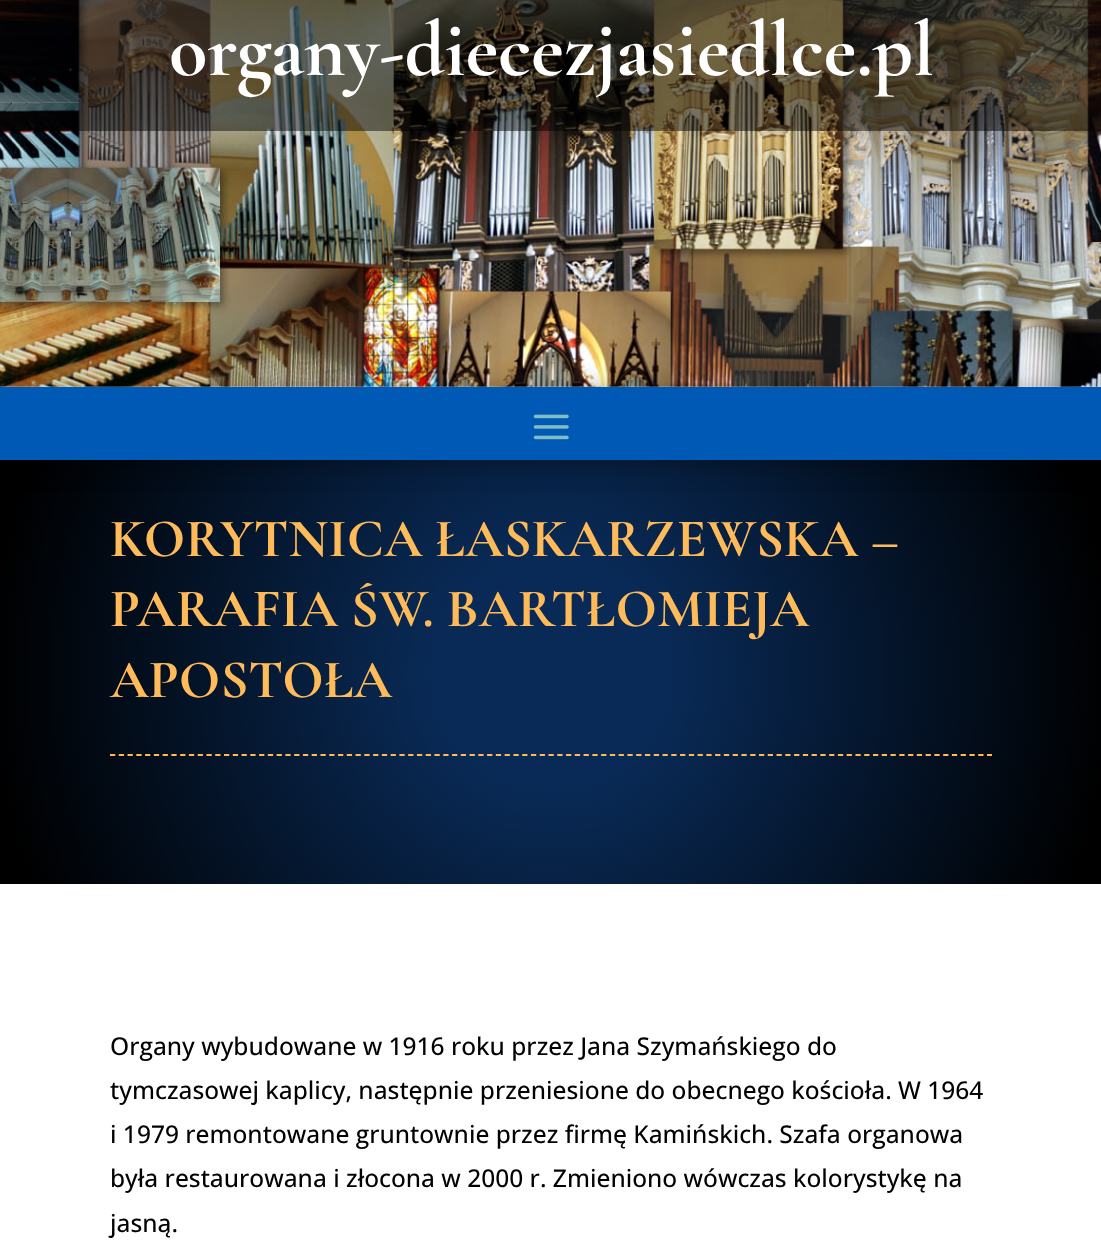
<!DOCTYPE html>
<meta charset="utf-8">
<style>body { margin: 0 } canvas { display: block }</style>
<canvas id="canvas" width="1101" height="1240"></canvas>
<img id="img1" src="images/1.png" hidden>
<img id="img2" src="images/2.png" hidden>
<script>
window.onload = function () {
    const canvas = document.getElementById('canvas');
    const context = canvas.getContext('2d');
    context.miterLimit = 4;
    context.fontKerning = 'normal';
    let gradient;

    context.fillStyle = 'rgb(255, 255, 255)';
    context.fillRect(0, 0, 1101, 1240);
    context.drawImage(document.getElementById('img1'), 0, 0, 1101, 387);
    context.fillStyle = 'rgba(0, 0, 0, 0.47)';
    context.fillRect(0, 0, 1101, 131);
    gradient = context.createRadialGradient(551, 672, 0, 551, 672, 591);
    gradient.addColorStop(0.2, 'rgb(9, 42, 86)');
    gradient.addColorStop(0.95, 'rgb(0, 0, 0)');
    context.fillStyle = gradient;
    context.fillRect(0, 460, 1101, 424);
    context.fillStyle = 'rgba(0, 0, 0, 0.3)';
    context.filter = 'blur(13px)';
    context.beginPath();
    context.rect(0, 390, 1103, 74);
    context.fill();
    context.filter = 'none';
    context.fillStyle = 'rgb(0, 89, 181)';
    context.fillRect(0, 387, 1101, 73);
    context.drawImage(document.getElementById('img2'), 533, 414, 36, 26);
    context.beginPath();
    context.moveTo(110, 755);
    context.lineTo(992, 755);
    context.strokeStyle = 'rgb(255, 187, 90)';
    context.lineWidth = 1.8;
    context.setLineDash([5.25, 3.52]);
    context.stroke();
    context.font = '300 78.75px Cormorant Garamond';
    context.fillStyle = 'rgb(255, 255, 255)';
    context.fillText('organy-diecezjasiedlce.pl', 169, 75);
    context.font = '300 54.25px Cormorant Garamond';
    context.fillStyle = 'rgb(255, 187, 90)';
    context.fillText('KORYTNICA ŁASKARZEWSKA –', 110, 556);
    context.fillText('PARAFIA ŚW. BARTŁOMIEJA', 110, 626);
    context.fillText('APOSTOŁA', 110, 697);
    context.font = '500 24.5px Open Sans';
    context.fillStyle = 'rgb(0, 0, 0)';
    context.fillText('Organy wybudowane w 1916 roku przez Jana Szymańskiego do', 110, 1055);
    context.fillText('tymczasowej kaplicy, następnie przeniesione do obecnego kościoła. W 1964', 110, 1099);
    context.fillText('i 1979 remontowane gruntownie przez firmę Kamińskich. Szafa organowa', 110, 1143);
    context.fillText('była restaurowana i złocona w 2000 r. Zmieniono wówczas kolorystykę na', 110, 1187);
    context.fillText('jasną.', 110, 1232);
};
</script>
